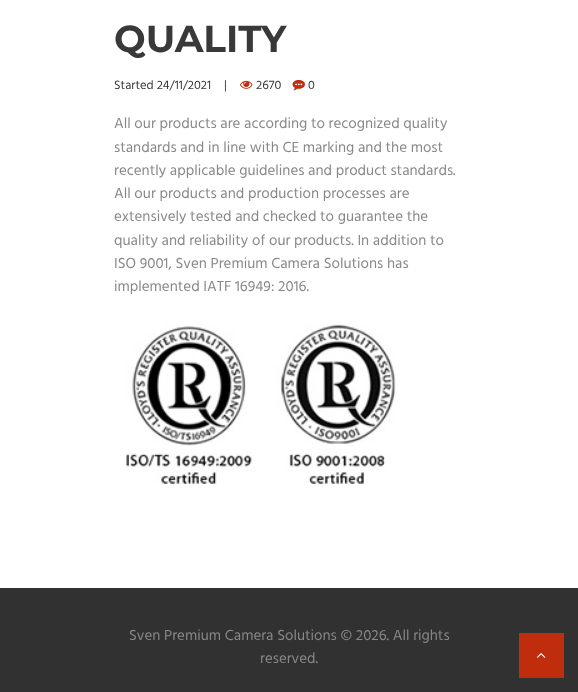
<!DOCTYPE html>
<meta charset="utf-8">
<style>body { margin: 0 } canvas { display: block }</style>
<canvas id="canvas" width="578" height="692"></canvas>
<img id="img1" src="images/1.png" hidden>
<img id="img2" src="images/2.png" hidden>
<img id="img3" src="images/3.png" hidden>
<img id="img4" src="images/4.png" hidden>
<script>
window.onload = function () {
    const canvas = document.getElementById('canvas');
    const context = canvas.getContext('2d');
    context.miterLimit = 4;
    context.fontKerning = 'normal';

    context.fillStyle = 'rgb(255, 255, 255)';
    context.fillRect(0, 0, 578, 692);
    context.drawImage(document.getElementById('img1'), 240, 80, 13, 9);
    context.drawImage(document.getElementById('img2'), 292, 79, 13, 12);
    context.drawImage(document.getElementById('img3'), 125, 324, 271, 160);
    context.fillStyle = 'rgb(49, 49, 49)';
    context.fillRect(0, 588, 578, 104);
    context.fillStyle = 'rgb(191, 45, 13)';
    context.fillRect(519, 633, 45, 45);
    context.drawImage(document.getElementById('img4'), 536, 653, 10, 5);
    context.font = 'bold 37.5px Montserrat';
    context.fillStyle = 'rgb(57, 57, 57)';
    context.fillText('QUALITY', 114, 52);
    context.font = '12.5px Hind';
    context.fillText('Started 24/11/2021', 114, 89);
    context.fillText('|', 224, 89);
    context.fillText('2670', 256, 89);
    context.fillText('0', 308, 89);
    context.font = '15px Hind';
    context.fillStyle = 'rgb(136, 136, 136)';
    context.fillText('All our products are according to recognized quality', 114, 128);
    context.fillText('standards and in line with CE marking and the most', 114, 152);
    context.fillText('recently applicable guidelines and product standards.', 114, 175);
    context.fillText('All our products and production processes are', 114, 198);
    context.fillText('extensively tested and checked to guarantee the', 114, 221);
    context.fillText('quality and reliability of our products. In addition to', 114, 245);
    context.fillText('ISO 9001, Sven Premium Camera Solutions has', 114, 268);
    context.fillText('implemented IATF 16949: 2016.', 114, 291);
    context.fillText('Sven Premium Camera Solutions © 2026. All rights', 129, 640);
    context.fillText('reserved.', 260, 663);
};
</script>
